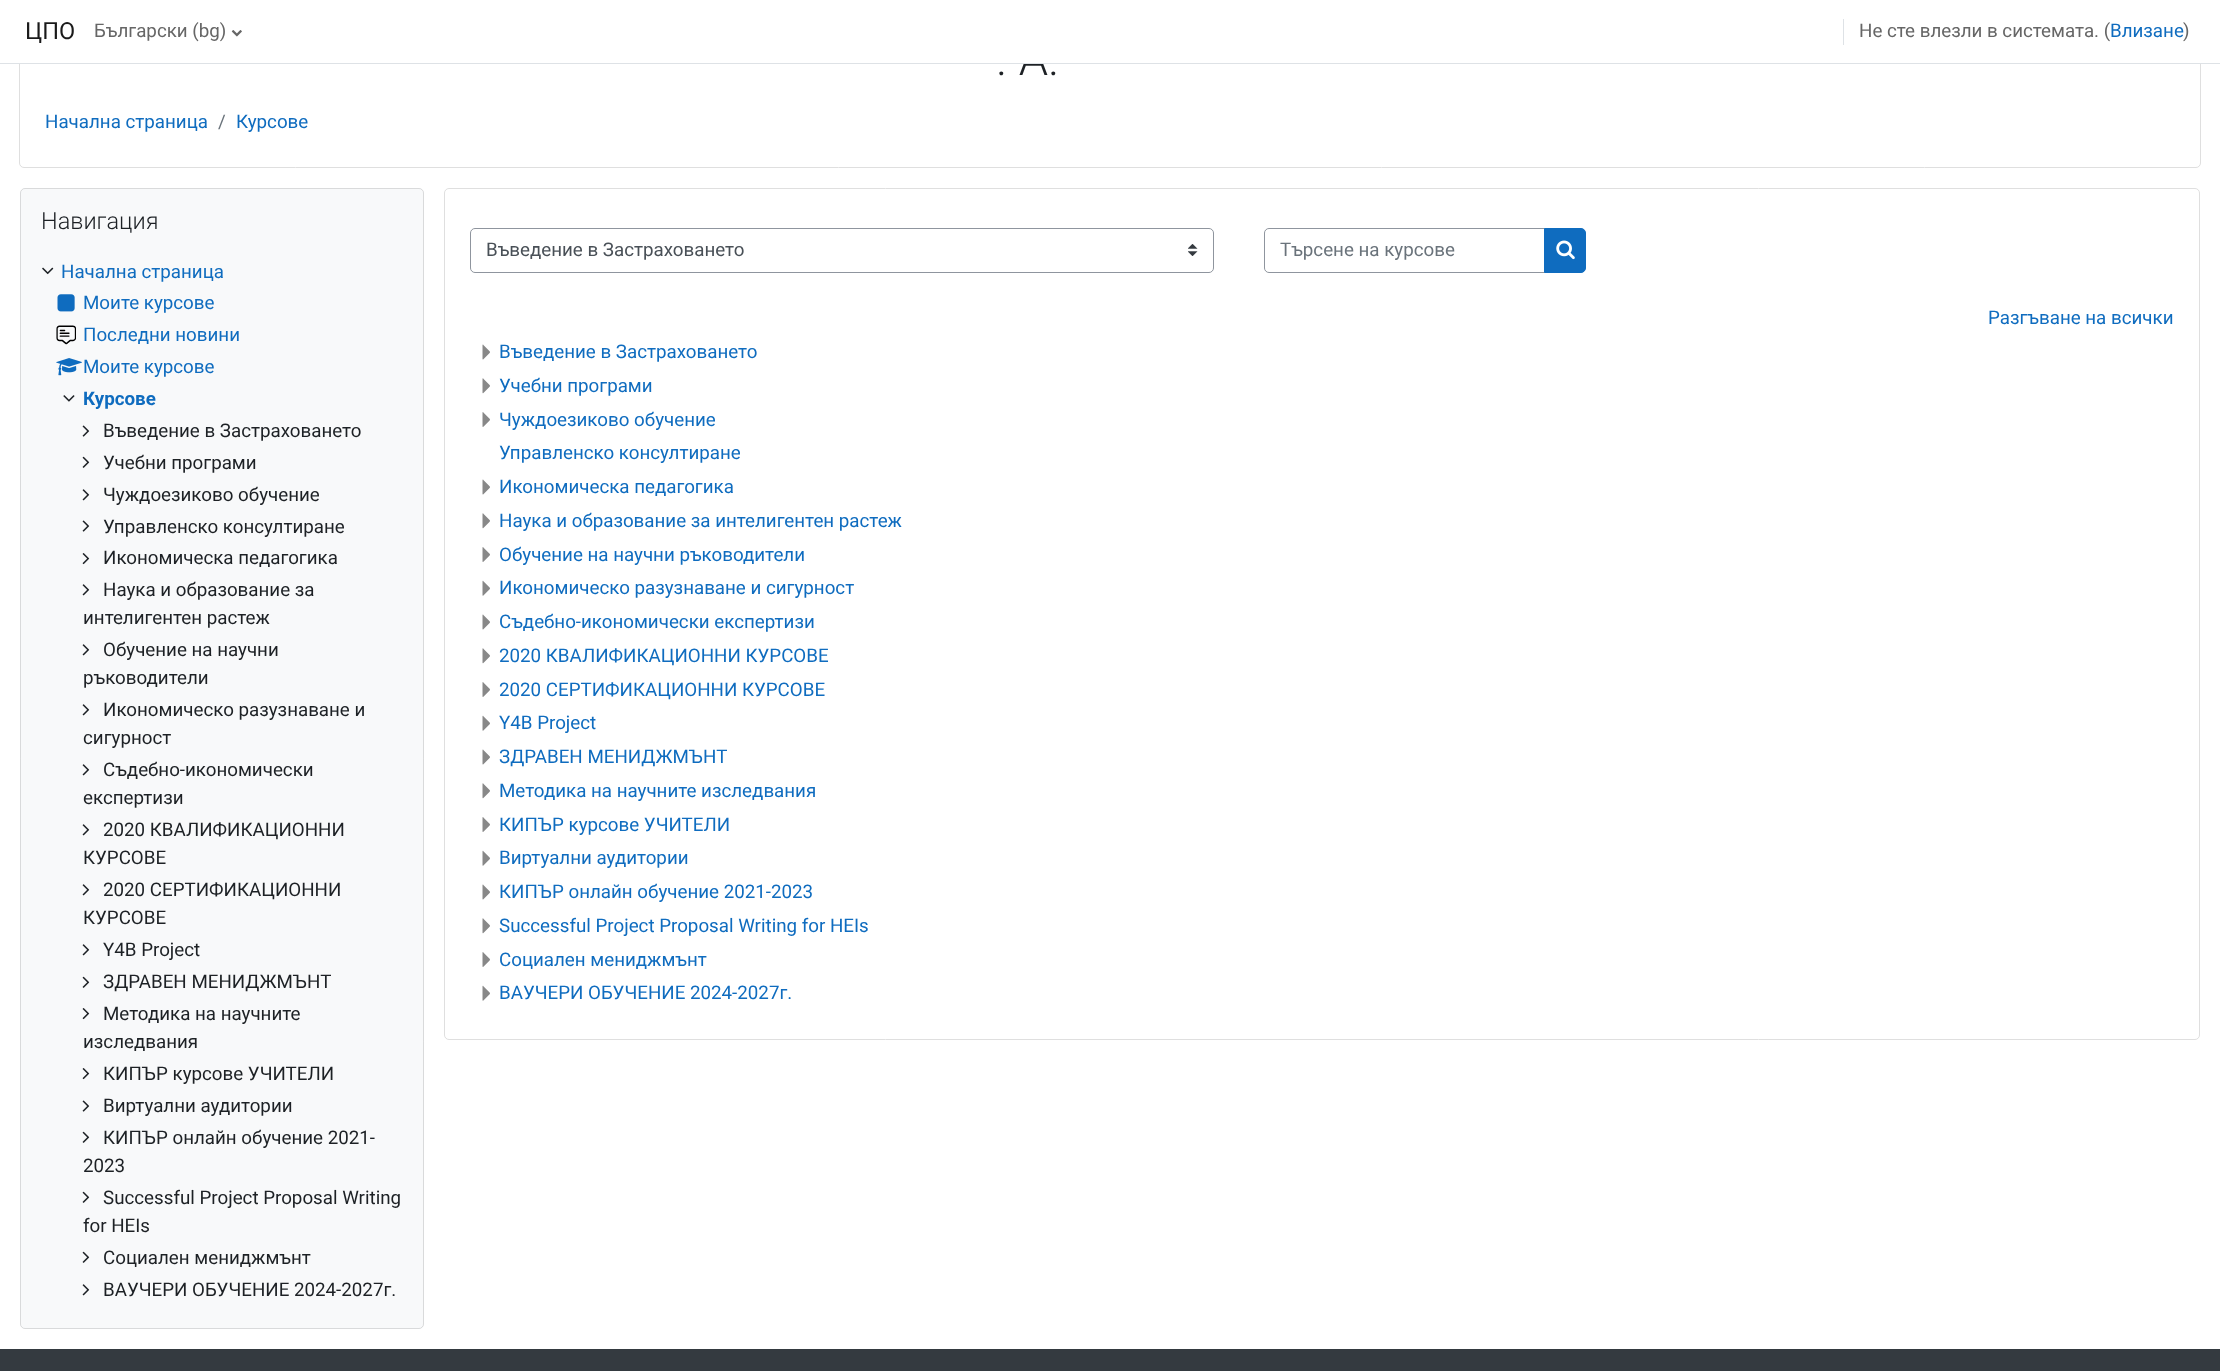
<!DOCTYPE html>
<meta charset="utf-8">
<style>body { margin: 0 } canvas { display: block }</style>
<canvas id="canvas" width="2220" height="1371"></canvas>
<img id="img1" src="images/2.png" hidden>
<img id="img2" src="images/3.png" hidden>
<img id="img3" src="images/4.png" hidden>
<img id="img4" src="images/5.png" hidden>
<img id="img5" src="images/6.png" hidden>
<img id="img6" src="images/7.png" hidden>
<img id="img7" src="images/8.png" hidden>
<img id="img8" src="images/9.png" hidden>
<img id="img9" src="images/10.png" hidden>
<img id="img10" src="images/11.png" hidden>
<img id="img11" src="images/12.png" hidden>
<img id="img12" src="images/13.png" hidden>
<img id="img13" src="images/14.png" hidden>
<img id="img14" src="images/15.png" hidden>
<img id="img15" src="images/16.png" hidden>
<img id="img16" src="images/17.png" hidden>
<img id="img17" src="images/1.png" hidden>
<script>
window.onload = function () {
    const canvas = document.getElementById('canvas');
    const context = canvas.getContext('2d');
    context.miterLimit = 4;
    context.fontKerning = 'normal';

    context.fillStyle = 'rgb(255, 255, 255)';
    context.fillRect(0, 0, 2220, 1371);
    context.beginPath();
    context.roundRect(19.5, 0.5, 2181, 167, 4.5);
    context.strokeStyle = 'rgb(223, 223, 223)';
    context.stroke();
    context.fillStyle = 'rgb(248, 249, 250)';
    context.beginPath();
    context.roundRect(20, 188, 404, 1141, 5);
    context.fill();
    context.beginPath();
    context.roundRect(20.5, 188.5, 403, 1140, 4.5);
    context.strokeStyle = 'rgba(0, 0, 0, 0.12)';
    context.stroke();
    context.drawImage(document.getElementById('img1'), 42, 267, 12, 8);
    context.drawImage(document.getElementById('img2'), 57, 294, 18, 18);
    context.drawImage(document.getElementById('img3'), 56, 325, 20, 20);
    context.drawImage(document.getElementById('img4'), 56, 358, 26, 18);
    context.drawImage(document.getElementById('img5'), 63, 395, 12, 7);
    context.drawImage(document.getElementById('img6'), 82, 425, 8, 12);
    context.drawImage(document.getElementById('img7'), 82, 456, 8, 12);
    context.drawImage(document.getElementById('img8'), 82, 489, 8, 12);
    context.drawImage(document.getElementById('img6'), 82, 520, 8, 12);
    context.drawImage(document.getElementById('img9'), 82, 553, 8, 12);
    context.drawImage(document.getElementById('img8'), 82, 584, 8, 12);
    context.drawImage(document.getElementById('img8'), 82, 644, 8, 12);
    context.drawImage(document.getElementById('img8'), 82, 704, 8, 12);
    context.drawImage(document.getElementById('img8'), 82, 764, 8, 12);
    context.drawImage(document.getElementById('img8'), 82, 824, 8, 12);
    context.drawImage(document.getElementById('img8'), 82, 884, 8, 12);
    context.drawImage(document.getElementById('img8'), 82, 944, 8, 12);
    context.drawImage(document.getElementById('img7'), 82, 976, 8, 12);
    context.drawImage(document.getElementById('img9'), 82, 1008, 8, 12);
    context.drawImage(document.getElementById('img9'), 82, 1068, 8, 12);
    context.drawImage(document.getElementById('img6'), 82, 1100, 8, 12);
    context.drawImage(document.getElementById('img7'), 82, 1131, 8, 12);
    context.drawImage(document.getElementById('img7'), 82, 1191, 8, 12);
    context.drawImage(document.getElementById('img7'), 82, 1251, 8, 12);
    context.drawImage(document.getElementById('img8'), 82, 1284, 8, 12);
    context.beginPath();
    context.roundRect(444.5, 188.5, 1755, 851, 4.5);
    context.strokeStyle = 'rgb(223, 223, 223)';
    context.stroke();
    context.drawImage(document.getElementById('img10'), 1188, 244, 10, 12);
    context.beginPath();
    context.roundRect(470.5, 228.5, 743, 44, 4.5);
    context.strokeStyle = 'rgb(143, 149, 158)';
    context.stroke();
    context.beginPath();
    context.roundRect(1264.5, 228.5, 280, 44, [4.5, 0, 0, 4.5]);
    context.stroke();
    context.fillStyle = 'rgb(15, 108, 191)';
    context.beginPath();
    context.roundRect(1544.5, 228.5, 41, 44, [0, 4.5, 4.5, 0]);
    context.fill();
    context.strokeStyle = 'rgb(15, 108, 191)';
    context.stroke();
    context.drawImage(document.getElementById('img11'), 1556, 240, 19, 20);
    context.drawImage(document.getElementById('img12'), 482, 344, 8, 16);
    context.drawImage(document.getElementById('img13'), 482, 378, 8, 16);
    context.drawImage(document.getElementById('img14'), 482, 412, 8, 15);
    context.drawImage(document.getElementById('img12'), 482, 479, 8, 16);
    context.drawImage(document.getElementById('img13'), 482, 513, 8, 16);
    context.drawImage(document.getElementById('img15'), 482, 547, 8, 15);
    context.drawImage(document.getElementById('img16'), 482, 580, 8, 16);
    context.drawImage(document.getElementById('img12'), 482, 614, 8, 16);
    context.drawImage(document.getElementById('img13'), 482, 648, 8, 16);
    context.drawImage(document.getElementById('img15'), 482, 682, 8, 15);
    context.drawImage(document.getElementById('img16'), 482, 715, 8, 16);
    context.drawImage(document.getElementById('img12'), 482, 749, 8, 16);
    context.drawImage(document.getElementById('img13'), 482, 783, 8, 16);
    context.drawImage(document.getElementById('img15'), 482, 817, 8, 15);
    context.drawImage(document.getElementById('img16'), 482, 850, 8, 16);
    context.drawImage(document.getElementById('img12'), 482, 884, 8, 16);
    context.drawImage(document.getElementById('img13'), 482, 918, 8, 16);
    context.drawImage(document.getElementById('img15'), 482, 952, 8, 15);
    context.drawImage(document.getElementById('img16'), 482, 985, 8, 16);
    context.fillStyle = 'rgb(52, 58, 64)';
    context.fillRect(0, 1349, 2220, 22);
    context.font = '300 47px Roboto';
    context.fillStyle = 'rgb(29, 33, 37)';
    context.fillText('. А.', 996, 75);
    context.fillStyle = 'rgb(255, 255, 255)';
    context.fillRect(19, 0, 2182, 63);
    context.drawImage(document.getElementById('img17'), 231, 30, 11, 7);
    context.font = '18.75px Roboto';
    context.fillStyle = 'rgb(102, 102, 102)';
    context.fillText('Български (bg)', 94, 37);
    context.fillText(')', 2183, 37);
    context.fillStyle = 'rgb(15, 108, 191)';
    context.fillText('Влизане', 2110, 37);
    context.fillStyle = 'rgb(102, 102, 102)';
    context.fillText('Не сте влезли в системата. (', 1859, 37);
    context.fillStyle = 'rgb(222, 226, 230)';
    context.fillRect(1843, 19, 1, 26);
    context.font = '23.5px Roboto';
    context.fillStyle = 'rgb(26, 26, 26)';
    context.fillText('ЦПО', 25, 39);
    context.fillStyle = 'rgb(222, 226, 230)';
    context.fillRect(0, 63, 2220, 1);
    context.font = '18.75px Roboto';
    context.fillStyle = 'rgb(15, 108, 191)';
    context.fillText('Начална страница', 45, 128);
    context.fillStyle = 'rgb(106, 115, 123)';
    context.fillText('/', 218, 128);
    context.fillStyle = 'rgb(15, 108, 191)';
    context.fillText('Курсове', 236, 128);
    context.font = '300 23.5px Roboto';
    context.fillStyle = 'rgb(29, 33, 37)';
    context.fillText('Навигация', 41, 229);
    context.font = '18.75px Roboto';
    context.fillStyle = 'rgb(15, 108, 191)';
    context.fillText('Начална страница', 61, 278);
    context.fillText('Моите курсове', 83, 309);
    context.fillText('Последни новини', 83, 341);
    context.fillText('Моите курсове', 83, 373);
    context.font = 'bold 18.75px Roboto';
    context.fillText('Курсове', 83, 405);
    context.font = '18.75px Roboto';
    context.fillStyle = 'rgb(29, 33, 37)';
    context.fillText('Въведение в Застраховането', 103, 437);
    context.fillText('Учебни програми', 103, 469);
    context.fillText('Чуждоезиково обучение', 103, 501);
    context.fillText('Управленско консултиране', 103, 533);
    context.fillText('Икономическа педагогика', 103, 564);
    context.fillText('Наука и образование за', 103, 596);
    context.fillText('интелигентен растеж', 83, 624);
    context.fillText('Обучение на научни', 103, 656);
    context.fillText('ръководители', 83, 684);
    context.fillText('Икономическо разузнаване и', 103, 716);
    context.fillText('сигурност', 83, 744);
    context.fillText('Съдебно-икономически', 103, 776);
    context.fillText('експертизи', 83, 804);
    context.fillText('2020 КВАЛИФИКАЦИОННИ', 103, 836);
    context.fillText('КУРСОВЕ', 83, 864);
    context.fillText('2020 СЕРТИФИКАЦИОННИ', 103, 896);
    context.fillText('КУРСОВЕ', 83, 924);
    context.fillText('Y4B Project', 103, 956);
    context.fillText('ЗДРАВЕН МЕНИДЖМЪНТ', 103, 988);
    context.fillText('Методика на научните', 103, 1020);
    context.fillText('изследвания', 83, 1048);
    context.fillText('КИПЪР курсове УЧИТЕЛИ', 103, 1080);
    context.fillText('Виртуални аудитории', 103, 1112);
    context.fillText('КИПЪР онлайн обучение 2021-', 103, 1144);
    context.fillText('2023', 83, 1172);
    context.fillText('Successful Project Proposal Writing', 103, 1204);
    context.fillText('for HEIs', 83, 1232);
    context.fillText('Социален мениджмънт', 103, 1264);
    context.fillText('ВАУЧЕРИ ОБУЧЕНИЕ 2024-2027г.', 103, 1296);
    context.fillStyle = 'rgb(73, 80, 87)';
    context.fillText('Въведение в Застраховането', 486, 256);
    context.fillStyle = 'rgb(106, 115, 123)';
    context.fillText('Търсене на курсове', 1280, 256);
    context.fillStyle = 'rgb(15, 108, 191)';
    context.fillText('Разгъване на всички', 1988, 324);
    context.fillText('Въведение в Застраховането', 499, 358);
    context.fillText('Учебни програми', 499, 392);
    context.fillText('Чуждоезиково обучение', 499, 426);
    context.fillText('Управленско консултиране', 499, 459);
    context.fillText('Икономическа педагогика', 499, 493);
    context.fillText('Наука и образование за интелигентен растеж', 499, 527);
    context.fillText('Обучение на научни ръководители', 499, 561);
    context.fillText('Икономическо разузнаване и сигурност', 499, 594);
    context.fillText('Съдебно-икономически експертизи', 499, 628);
    context.fillText('2020 КВАЛИФИКАЦИОННИ КУРСОВЕ', 499, 662);
    context.fillText('2020 СЕРТИФИКАЦИОННИ КУРСОВЕ', 499, 696);
    context.fillText('Y4B Project', 499, 729);
    context.fillText('ЗДРАВЕН МЕНИДЖМЪНТ', 499, 763);
    context.fillText('Методика на научните изследвания', 499, 797);
    context.fillText('КИПЪР курсове УЧИТЕЛИ', 499, 831);
    context.fillText('Виртуални аудитории', 499, 864);
    context.fillText('КИПЪР онлайн обучение 2021-2023', 499, 898);
    context.fillText('Successful Project Proposal Writing for HEIs', 499, 932);
    context.fillText('Социален мениджмънт', 499, 966);
    context.fillText('ВАУЧЕРИ ОБУЧЕНИЕ 2024-2027г.', 499, 999);
};
</script>
